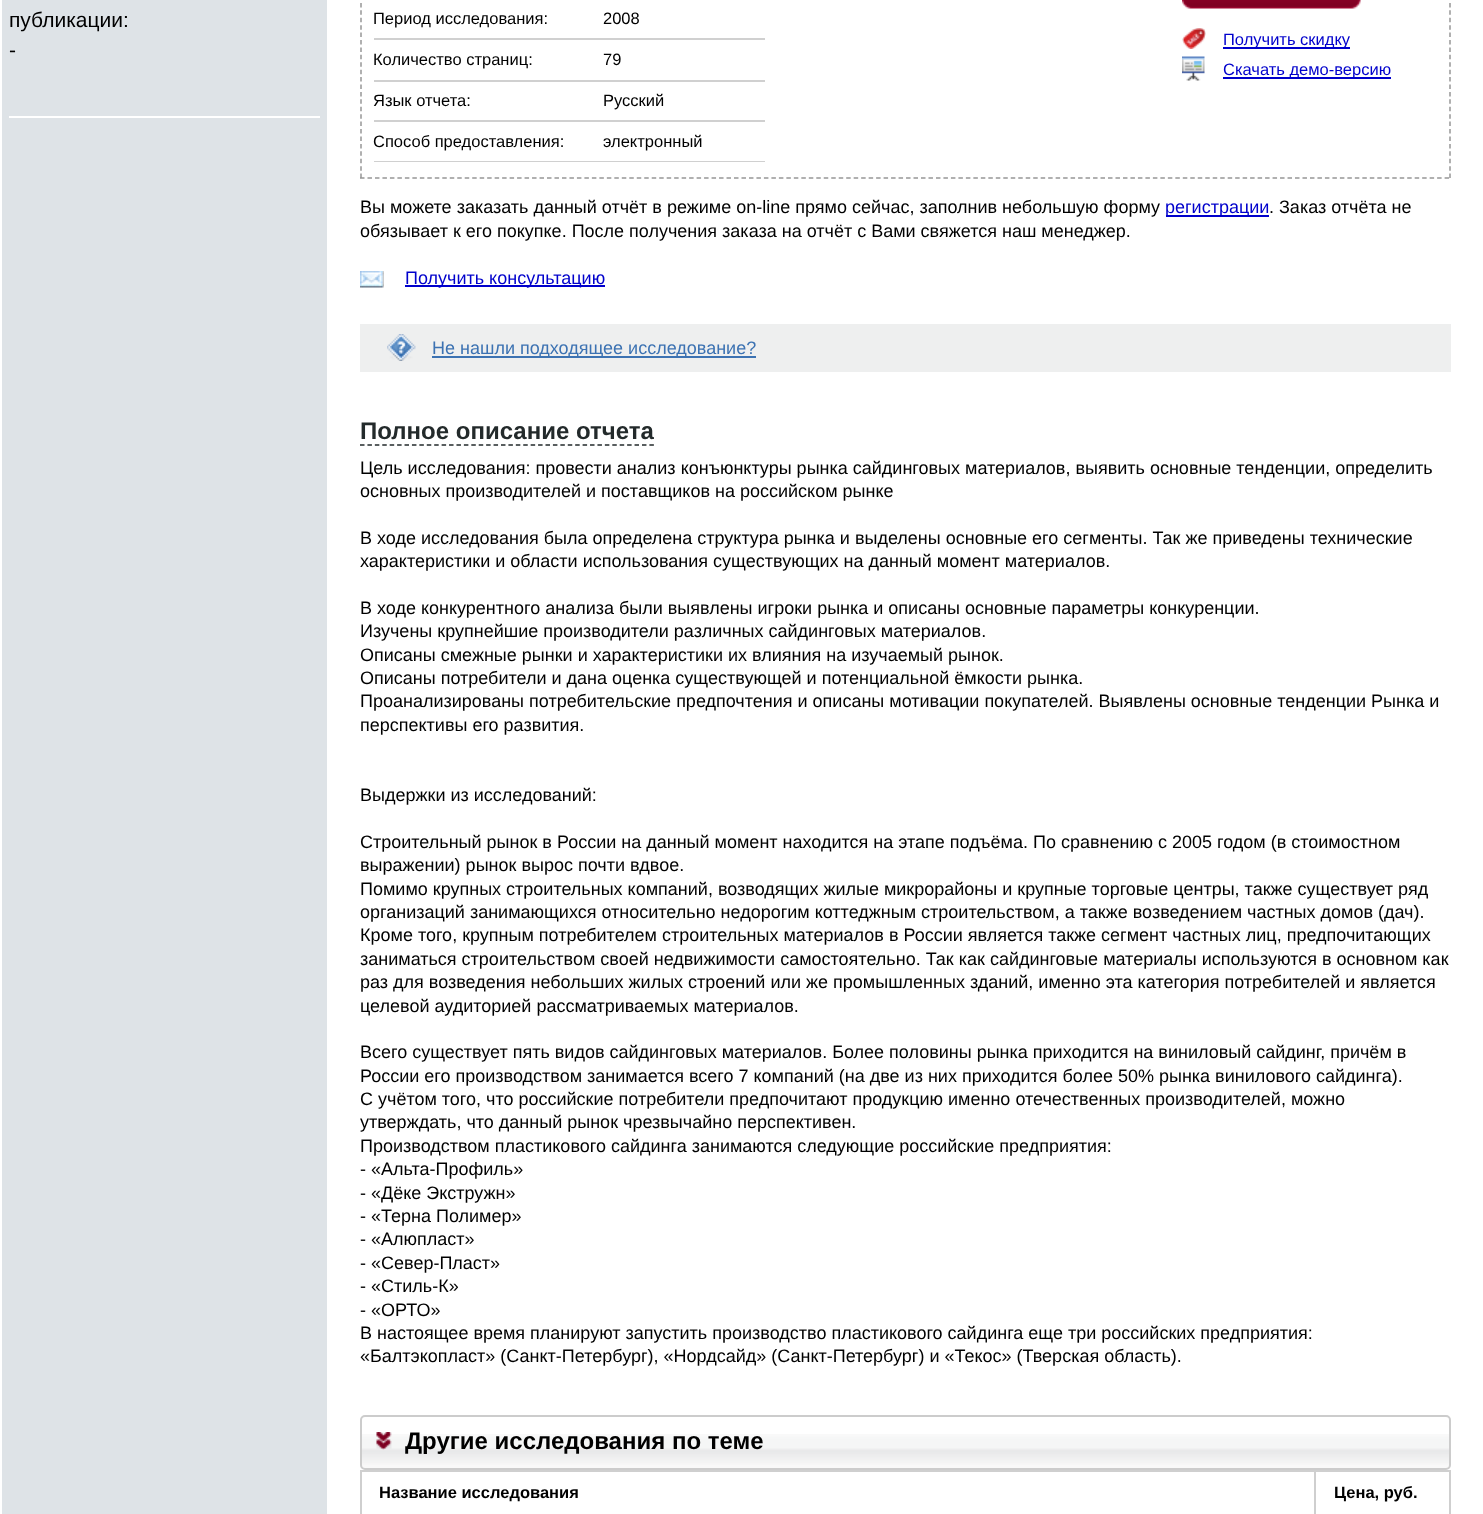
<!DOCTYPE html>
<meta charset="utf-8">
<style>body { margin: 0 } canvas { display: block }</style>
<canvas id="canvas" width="1483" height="1514"></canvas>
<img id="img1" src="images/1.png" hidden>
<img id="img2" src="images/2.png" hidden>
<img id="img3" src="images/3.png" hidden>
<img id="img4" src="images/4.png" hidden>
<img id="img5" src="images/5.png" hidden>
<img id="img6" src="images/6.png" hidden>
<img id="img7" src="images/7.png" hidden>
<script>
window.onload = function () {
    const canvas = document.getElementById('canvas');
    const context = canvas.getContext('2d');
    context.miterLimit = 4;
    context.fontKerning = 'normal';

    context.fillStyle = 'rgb(255, 255, 255)';
    context.fillRect(0, 0, 1483, 1514);
    context.fillStyle = 'rgb(222, 227, 231)';
    context.fillRect(2, 0, 325, 1514);
    context.fillStyle = 'rgb(255, 255, 255)';
    context.fillRect(9, 116, 311, 2);
    context.beginPath();
    context.moveTo(1450, -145.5);
    context.lineTo(1450, 178.5);
    context.strokeStyle = 'rgb(150, 150, 150)';
    context.lineWidth = 1.5;
    context.setLineDash([4.5, 2.92]);
    context.stroke();
    context.beginPath();
    context.moveTo(360, 178);
    context.lineTo(1450.5, 178);
    context.setLineDash([4.5, 2.98]);
    context.stroke();
    context.beginPath();
    context.moveTo(361, -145.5);
    context.lineTo(361, 178.5);
    context.setLineDash([4.5, 2.92]);
    context.stroke();
    context.fillStyle = 'rgb(208, 208, 208)';
    context.fillRect(374, 38, 391, 2);
    context.fillRect(374, 80, 391, 2);
    context.fillRect(374, 120, 391, 2);
    context.fillRect(374, 161, 391, 1);
    context.drawImage(document.getElementById('img1'), 1182, 0, 179, 9);
    context.drawImage(document.getElementById('img2'), 1182, 28, 24, 21);
    context.fillStyle = 'rgb(0, 0, 204)';
    context.fillRect(1223, 47, 127, 2);
    context.drawImage(document.getElementById('img3'), 1182, 56, 23, 25);
    context.fillRect(1223, 77, 168, 2);
    context.fillRect(1166, 215, 103, 2);
    context.drawImage(document.getElementById('img4'), 360, 271, 24, 17);
    context.fillRect(405, 285, 200, 2);
    context.fillStyle = 'rgb(238, 239, 239)';
    context.fillRect(360, 324, 1091, 48);
    context.drawImage(document.getElementById('img5'), 387, 334, 29, 27);
    context.fillStyle = 'rgb(60, 114, 178)';
    context.fillRect(432, 356, 324, 2);
    context.beginPath();
    context.moveTo(360, 445);
    context.lineTo(654, 445);
    context.strokeStyle = 'rgb(35, 42, 43)';
    context.stroke();
    context.drawImage(document.getElementById('img6'), 360, 1434, 1091, 34);
    context.beginPath();
    context.roundRect(361, 1416, 1089, 53, 4);
    context.strokeStyle = 'rgb(204, 204, 204)';
    context.lineWidth = 2;
    context.setLineDash([]);
    context.stroke();
    context.drawImage(document.getElementById('img7'), 376, 1432, 16, 18);
    context.fillStyle = 'rgb(207, 207, 207)';
    context.fillRect(360, 1470, 1091, 2);
    context.fillRect(1449, 1470, 2, 44);
    context.fillRect(360, 1470, 2, 44);
    context.fillRect(1314, 1470, 2, 44);
    context.font = '21px Liberation Sans';
    context.fillStyle = 'rgb(0, 0, 0)';
    context.fillText('публикации:', 9, 27);
    context.fillText('-', 9, 57);
    context.font = '16.5px Liberation Sans';
    context.fillText('Период исследования:', 373, 24);
    context.fillText('2008', 603, 24);
    context.fillText('Количество страниц:', 373, 65);
    context.fillText('79', 603, 65);
    context.fillText('Язык отчета:', 373, 106);
    context.fillText('Русский', 603, 106);
    context.fillText('Способ предоставления:', 373, 147);
    context.fillText('электронный', 603, 147);
    context.fillStyle = 'rgb(0, 0, 204)';
    context.fillText('Получить скидку', 1223, 45);
    context.fillText('Скачать демо-версию', 1223, 75);
    context.font = '18px Liberation Sans';
    context.fillStyle = 'rgb(0, 0, 0)';
    context.fillText('Вы можете заказать данный отчёт в режиме on-line прямо сейчас, заполнив небольшую форму', 360, 213);
    context.fillStyle = 'rgb(0, 0, 204)';
    context.fillText('регистрации', 1165, 213);
    context.fillStyle = 'rgb(0, 0, 0)';
    context.fillText('. Заказ отчёта не', 1269, 213);
    context.fillText('обязывает к его покупке. После получения заказа на отчёт с Вами свяжется наш менеджер.', 360, 237);
    context.fillStyle = 'rgb(0, 0, 204)';
    context.fillText('Получить консультацию', 405, 284);
    context.fillStyle = 'rgb(60, 114, 178)';
    context.fillText('Не нашли подходящее исследование?', 432, 354);
    context.font = 'bold 24px Liberation Sans';
    context.fillStyle = 'rgb(35, 42, 43)';
    context.fillText('Полное описание отчета', 360, 439);
    context.font = '18px Liberation Sans';
    context.fillStyle = 'rgb(0, 0, 0)';
    context.fillText('Цель исследования: провести анализ конъюнктуры рынка сайдинговых материалов, выявить основные тенденции, определить', 360, 474);
    context.fillText('основных производителей и поставщиков на российском рынке', 360, 497);
    context.fillText('В ходе исследования была определена структура рынка и выделены основные его сегменты. Так же приведены технические', 360, 544);
    context.fillText('характеристики и области использования существующих на данный момент материалов.', 360, 567);
    context.fillText('В ходе конкурентного анализа были выявлены игроки рынка и описаны основные параметры конкуренции.', 360, 614);
    context.fillText('Изучены крупнейшие производители различных сайдинговых материалов.', 360, 637);
    context.fillText('Описаны смежные рынки и характеристики их влияния на изучаемый рынок.', 360, 661);
    context.fillText('Описаны потребители и дана оценка существующей и потенциальной ёмкости рынка.', 360, 684);
    context.fillText('Проанализированы потребительские предпочтения и описаны мотивации покупателей. Выявлены основные тенденции Рынка и', 360, 707);
    context.fillText('перспективы его развития.', 360, 731);
    context.fillText('Выдержки из исследований:', 360, 801);
    context.fillText('Строительный рынок в России на данный момент находится на этапе подъёма. По сравнению с 2005 годом (в стоимостном', 360, 848);
    context.fillText('выражении) рынок вырос почти вдвое.', 360, 871);
    context.fillText('Помимо крупных строительных компаний, возводящих жилые микрорайоны и крупные торговые центры, также существует ряд', 360, 895);
    context.fillText('организаций занимающихся относительно недорогим коттеджным строительством, а также возведением частных домов (дач).', 360, 918);
    context.fillText('Кроме того, крупным потребителем строительных материалов в России является также сегмент частных лиц, предпочитающих', 360, 941);
    context.fillText('заниматься строительством своей недвижимости самостоятельно. Так как сайдинговые материалы используются в основном как', 360, 965);
    context.fillText('раз для возведения небольших жилых строений или же промышленных зданий, именно эта категория потребителей и является', 360, 988);
    context.fillText('целевой аудиторией рассматриваемых материалов.', 360, 1012);
    context.fillText('Всего существует пять видов сайдинговых материалов. Более половины рынка приходится на виниловый сайдинг, причём в', 360, 1058);
    context.fillText('России его производством занимается всего 7 компаний (на две из них приходится более 50% рынка винилового сайдинга).', 360, 1082);
    context.fillText('С учётом того, что российские потребители предпочитают продукцию именно отечественных производителей, можно', 360, 1105);
    context.fillText('утверждать, что данный рынок чрезвычайно перспективен.', 360, 1128);
    context.fillText('Производством пластикового сайдинга занимаются следующие российские предприятия:', 360, 1152);
    context.fillText('- «Альта-Профиль»', 360, 1175);
    context.fillText('- «Дёке Экстружн»', 360, 1199);
    context.fillText('- «Терна Полимер»', 360, 1222);
    context.fillText('- «Алюпласт»', 360, 1245);
    context.fillText('- «Север-Пласт»', 360, 1269);
    context.fillText('- «Стиль-К»', 360, 1292);
    context.fillText('- «ОРТО»', 360, 1316);
    context.fillText('В настоящее время планируют запустить производство пластикового сайдинга еще три российских предприятия:', 360, 1339);
    context.fillText('«Балтэкопласт» (Санкт-Петербург), «Нордсайд» (Санкт-Петербург) и «Текос» (Тверская область).', 360, 1362);
    context.font = 'bold 24px Liberation Sans';
    context.fillText('Другие исследования по теме', 405, 1449);
    context.font = 'bold 16.5px Liberation Sans';
    context.fillText('Название исследования', 379, 1498);
    context.fillText('Цена, руб.', 1334, 1498);
};
</script>
